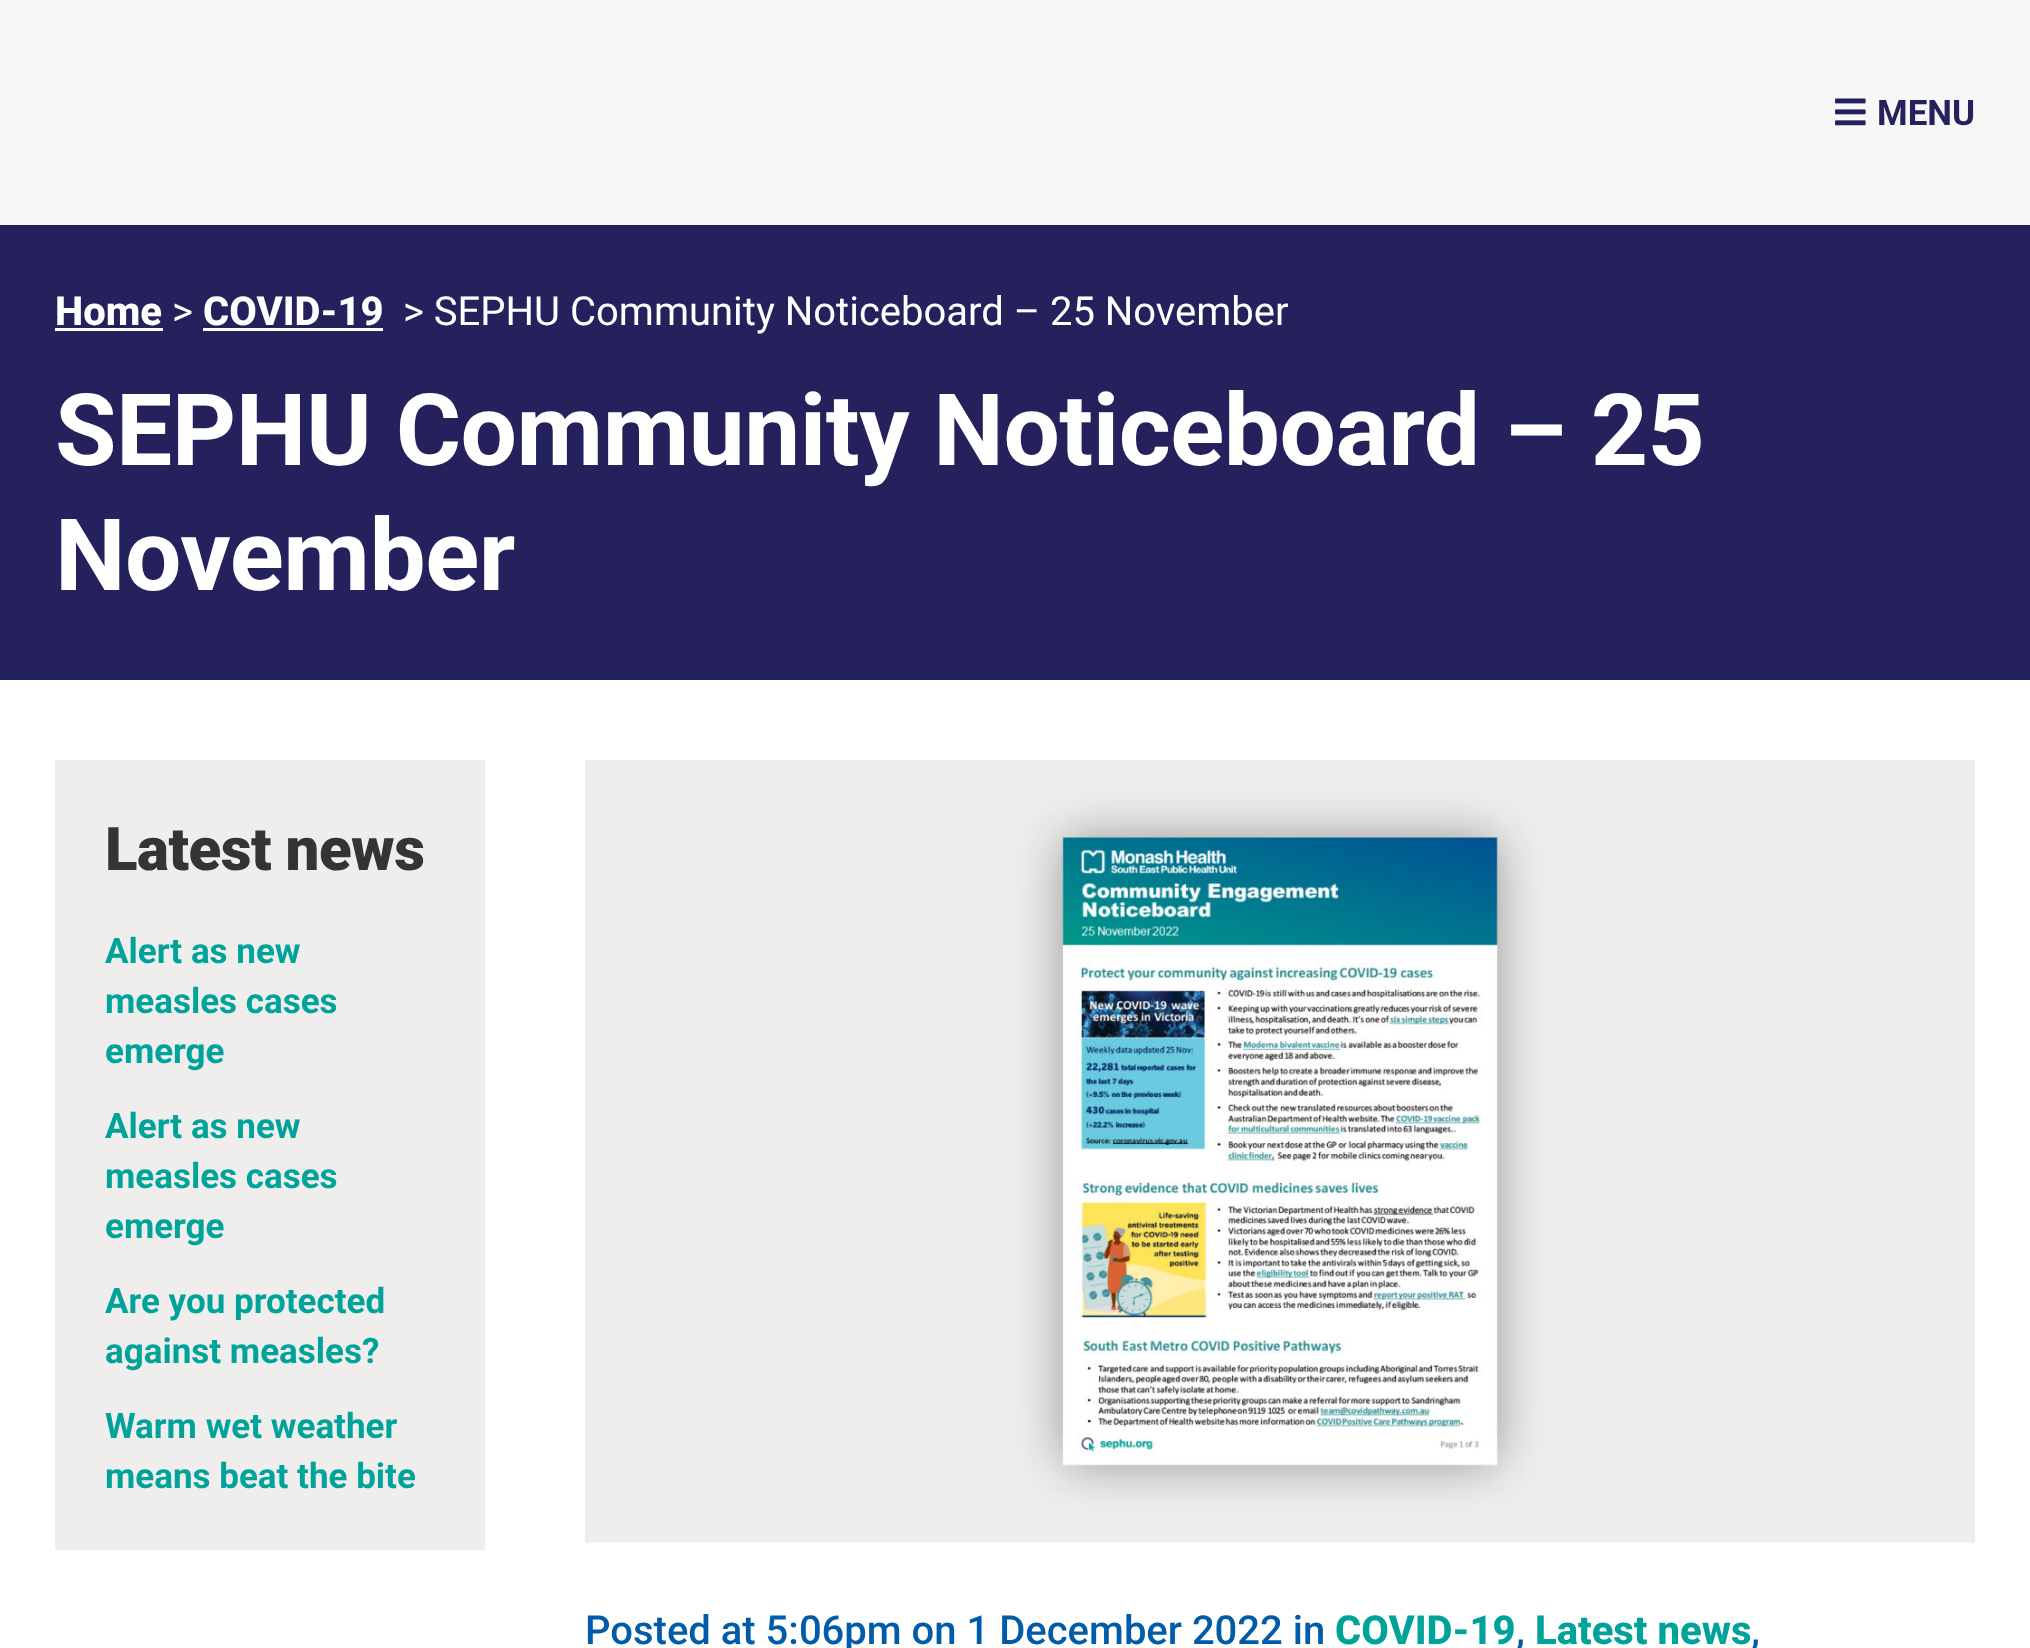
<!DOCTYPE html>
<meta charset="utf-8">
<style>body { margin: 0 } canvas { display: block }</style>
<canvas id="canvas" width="2030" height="1648"></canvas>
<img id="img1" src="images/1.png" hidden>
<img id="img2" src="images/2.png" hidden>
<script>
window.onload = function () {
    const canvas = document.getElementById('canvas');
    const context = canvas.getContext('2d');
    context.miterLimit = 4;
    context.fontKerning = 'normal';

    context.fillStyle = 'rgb(255, 255, 255)';
    context.fillRect(0, 0, 2030, 1648);
    context.fillStyle = 'rgb(247, 247, 247)';
    context.fillRect(0, 0, 2030, 225);
    context.drawImage(document.getElementById('img1'), 1835, 98, 31, 28);
    context.fillStyle = 'rgb(37, 33, 93)';
    context.fillRect(0, 225, 2030, 455);
    context.fillStyle = 'rgb(255, 255, 255)';
    context.fillRect(55, 328, 108, 3);
    context.fillRect(203, 328, 180, 3);
    context.fillStyle = 'rgb(239, 238, 237)';
    context.fillRect(55, 760, 430, 790);
    context.drawImage(document.getElementById('img2'), 585, 760, 1390, 783);
    context.font = 'bold 35px Roboto';
    context.fillStyle = 'rgb(37, 33, 93)';
    context.fillText('MENU', 1877, 125);
    context.font = '800 40px Roboto';
    context.fillStyle = 'rgb(255, 255, 255)';
    context.fillText('Home', 55, 325);
    context.font = '40px Roboto';
    context.fillText('>', 172, 325);
    context.font = '800 40px Roboto';
    context.fillText('COVID-19', 203, 325);
    context.font = '40px Roboto';
    context.fillText('> SEPHU Community Noticeboard – 25 November', 403, 325);
    context.letterSpacing = '-0.5px';
    context.font = 'bold 100px Roboto';
    context.fillText('SEPHU Community Noticeboard – 25', 55, 465);
    context.fillText('November', 55, 590);
    context.font = '900 60px Roboto';
    context.fillStyle = 'rgb(52, 52, 52)';
    context.fillText('Latest news', 105, 870);
    context.letterSpacing = '0px';
    context.font = 'bold 35px Roboto';
    context.fillStyle = 'rgb(0, 163, 154)';
    context.fillText('Alert as new', 105, 963);
    context.fillText('measles cases', 105, 1013);
    context.fillText('emerge', 105, 1063);
    context.fillText('Alert as new', 105, 1138);
    context.fillText('measles cases', 105, 1188);
    context.fillText('emerge', 105, 1238);
    context.fillText('Are you protected', 105, 1313);
    context.fillText('against measles?', 105, 1363);
    context.fillText('Warm wet weather', 105, 1438);
    context.fillText('means beat the bite', 105, 1488);
    context.font = '500 40px Roboto';
    context.fillStyle = 'rgb(0, 92, 169)';
    context.fillText('Posted at 5:06pm on 1 December 2022 in', 585, 1644);
    context.font = '800 40px Roboto';
    context.fillStyle = 'rgb(0, 163, 154)';
    context.fillText('COVID-19', 1335, 1644);
    context.font = '500 40px Roboto';
    context.fillStyle = 'rgb(0, 92, 169)';
    context.fillText(',', 1516, 1644);
    context.font = '800 40px Roboto';
    context.fillStyle = 'rgb(0, 163, 154)';
    context.fillText('Latest news', 1535, 1644);
    context.font = '500 40px Roboto';
    context.fillStyle = 'rgb(0, 92, 169)';
    context.fillText(',', 1751, 1644);
};
</script>
